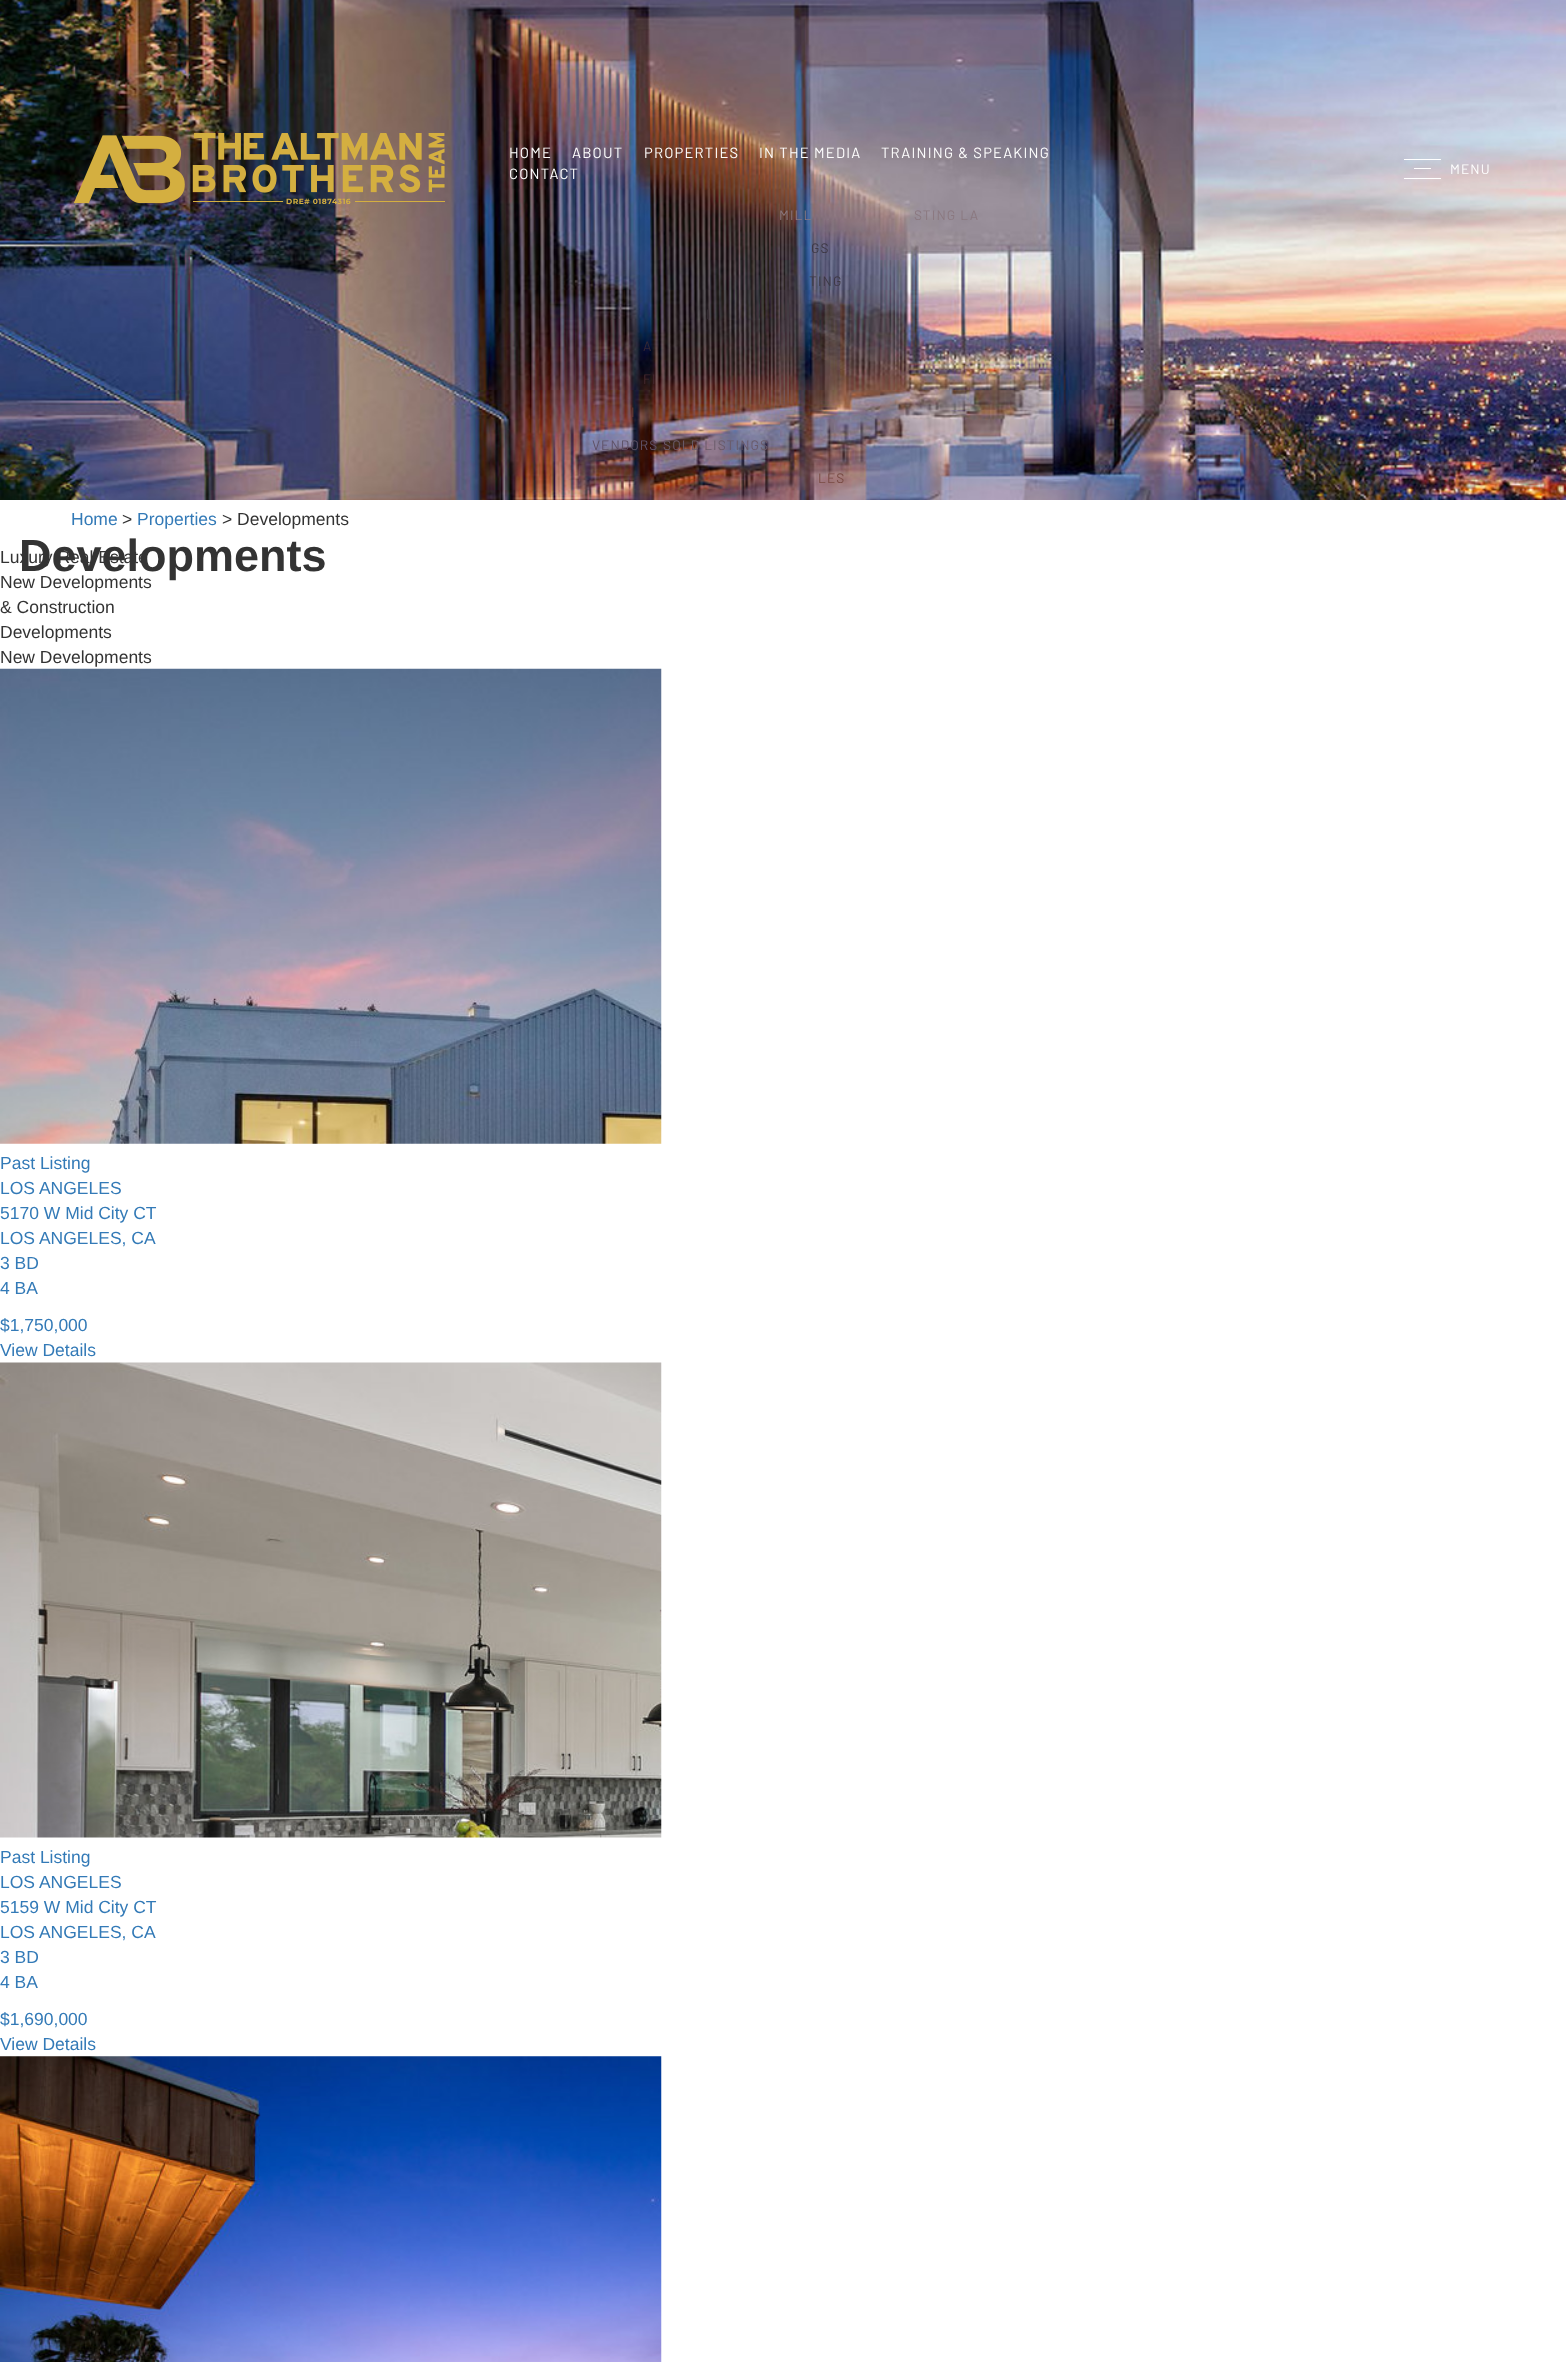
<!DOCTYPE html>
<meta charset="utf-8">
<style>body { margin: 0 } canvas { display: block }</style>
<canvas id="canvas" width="1566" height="2362"></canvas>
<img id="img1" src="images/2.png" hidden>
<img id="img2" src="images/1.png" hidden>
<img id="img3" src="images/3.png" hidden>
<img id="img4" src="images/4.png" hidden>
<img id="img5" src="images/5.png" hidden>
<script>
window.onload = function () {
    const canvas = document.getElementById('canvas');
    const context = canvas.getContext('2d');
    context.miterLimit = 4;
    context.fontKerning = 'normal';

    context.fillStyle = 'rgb(255, 255, 255)';
    context.fillRect(0, 0, 1566, 2362);
    context.drawImage(document.getElementById('img1'), 0, 0, 1566, 500);
    context.fillRect(1404, 159, 37, 1);
    context.fillRect(1414, 168, 17, 1);
    context.fillRect(1404, 178, 37, 1);
    context.drawImage(document.getElementById('img2'), 74, 133, 371, 71);
    context.drawImage(document.getElementById('img3'), 0, 668, 662, 476);
    context.drawImage(document.getElementById('img4'), 0, 1362, 662, 476);
    context.drawImage(document.getElementById('img5'), 0, 2056, 662, 306);
    context.letterSpacing = '1.2px';
    context.font = '14.75px Barlow';
    context.fillText('HOME', 509, 158);
    context.fillText('ABOUT', 572, 158);
    context.letterSpacing = '1.1px';
    context.font = '13.75px Barlow';
    context.fillStyle = 'rgb(52, 39, 51)';
    context.fillText('A', 643, 351);
    context.fillStyle = 'rgb(70, 42, 47)';
    context.fillText('FI', 643, 384);
    context.fillStyle = 'rgb(106, 59, 54)';
    context.fillText('I', 631, 417);
    context.fillStyle = 'rgb(95, 82, 103)';
    context.fillText('VENDORS', 592, 450);
    context.letterSpacing = '1.2px';
    context.font = '14.75px Barlow';
    context.fillStyle = 'rgb(255, 255, 255)';
    context.fillText('PROPERTIES', 644, 158);
    context.letterSpacing = '1.1px';
    context.font = '13.75px Barlow';
    context.fillStyle = 'rgb(62, 57, 69)';
    context.fillText('GS', 811, 253);
    context.fillText('TING', 809, 286);
    context.fillStyle = 'rgb(57, 49, 56)';
    context.fillText('I', 706, 319);
    context.fillStyle = 'rgb(106, 91, 106)';
    context.fillText('SOLD LISTINGS', 663, 450);
    context.fillStyle = 'rgb(121, 75, 68)';
    context.fillText('LES', 818, 483);
    context.letterSpacing = '1.2px';
    context.font = '14.75px Barlow';
    context.fillStyle = 'rgb(255, 255, 255)';
    context.fillText('IN THE MEDIA', 759, 158);
    context.letterSpacing = '1.1px';
    context.font = '13.75px Barlow';
    context.fillStyle = 'rgb(139, 121, 128)';
    context.fillText('MILL', 779, 220);
    context.fillText('STING LA', 914, 220);
    context.letterSpacing = '1.2px';
    context.font = '14.75px Barlow';
    context.fillStyle = 'rgb(255, 255, 255)';
    context.fillText('TRAINING & SPEAKING', 881, 158);
    context.fillText('CONTACT', 509, 179);
    context.letterSpacing = '1.1px';
    context.font = '13.75px Barlow';
    context.fillText('MENU', 1450, 174);
    context.letterSpacing = '0.5px';
    context.font = 'bold 7.5px Montserrat';
    context.fillStyle = 'rgb(212, 175, 64)';
    context.fillText('DRE# 01874316', 286, 204);
    context.letterSpacing = '0px';
    context.font = '17.5px Liberation Sans';
    context.fillStyle = 'rgb(51, 122, 183)';
    context.fillText('Home', 71, 525);
    context.fillStyle = 'rgb(51, 51, 51)';
    context.fillText('>', 122, 525);
    context.fillStyle = 'rgb(51, 122, 183)';
    context.fillText('Properties', 137, 525);
    context.fillStyle = 'rgb(51, 51, 51)';
    context.fillText('> Developments', 222, 525);
    context.fillText('Luxury Real Estate', 0, 563);
    context.font = 'bold 45px Liberation Sans';
    context.fillText('Developments', 19, 571);
    context.font = '17.5px Liberation Sans';
    context.fillText('New Developments', 0, 588);
    context.fillText('& Construction', 0, 613);
    context.fillText('Developments', 0, 638);
    context.fillText('New Developments', 0, 663);
    context.fillStyle = 'rgb(51, 122, 183)';
    context.fillText('Past Listing', 0, 1169);
    context.fillText('LOS ANGELES', 0, 1194);
    context.fillText('5170 W Mid City CT', 0, 1219);
    context.fillText('LOS ANGELES, CA', 0, 1244);
    context.fillText('3 BD', 0, 1269);
    context.fillText('4 BA', 0, 1294);
    context.fillText('$1,750,000', 0, 1331);
    context.fillText('View Details', 0, 1356);
    context.fillText('Past Listing', 0, 1863);
    context.fillText('LOS ANGELES', 0, 1888);
    context.fillText('5159 W Mid City CT', 0, 1913);
    context.fillText('LOS ANGELES, CA', 0, 1938);
    context.fillText('3 BD', 0, 1963);
    context.fillText('4 BA', 0, 1988);
    context.fillText('$1,690,000', 0, 2025);
    context.fillText('View Details', 0, 2050);
};
</script>
